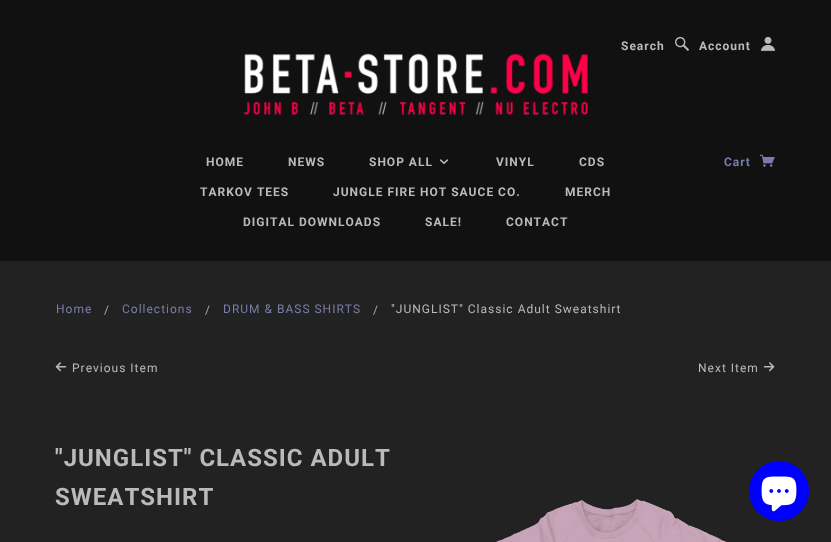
<!DOCTYPE html>
<meta charset="utf-8">
<style>body { margin: 0 } canvas { display: block }</style>
<canvas id="canvas" width="831" height="542"></canvas>
<img id="img1" src="images/1.png" hidden>
<img id="img2" src="images/2.png" hidden>
<img id="img3" src="images/3.png" hidden>
<img id="img4" src="images/4.png" hidden>
<img id="img5" src="images/5.png" hidden>
<img id="img6" src="images/6.png" hidden>
<img id="img7" src="images/7.png" hidden>
<img id="img8" src="images/8.png" hidden>
<img id="img9" src="images/9.png" hidden>
<script>
window.onload = function () {
    const canvas = document.getElementById('canvas');
    const context = canvas.getContext('2d');
    context.miterLimit = 4;
    context.fontKerning = 'none';

    context.fillStyle = 'rgb(34, 34, 34)';
    context.fillRect(0, 0, 831, 542);
    context.fillStyle = 'rgb(17, 17, 17)';
    context.fillRect(0, 0, 831, 261);
    context.drawImage(document.getElementById('img1'), 675, 36, 14, 15);
    context.drawImage(document.getElementById('img2'), 761, 36, 14, 15);
    context.drawImage(document.getElementById('img3'), 243, 53, 345, 62);
    context.drawImage(document.getElementById('img4'), 440, 159, 8, 5);
    context.drawImage(document.getElementById('img5'), 760, 154, 15, 13);
    context.drawImage(document.getElementById('img6'), 55, 362, 12, 10);
    context.drawImage(document.getElementById('img7'), 763, 362, 12, 10);
    context.drawImage(document.getElementById('img8'), 495, 499, 233, 43);
    context.fillStyle = 'rgb(0, 0, 255)';
    context.beginPath();
    context.arc(779, 491, 30, 0, 2 * Math.PI);
    context.fill();
    context.drawImage(document.getElementById('img9'), 761, 476, 36, 36);
    context.letterSpacing = '1px';
    context.font = 'bold 12px Roboto';
    context.fillStyle = 'rgb(186, 186, 186)';
    context.fillText('Search', 621, 50);
    context.fillText('Account', 699, 50);
    context.fillText('HOME', 206, 166);
    context.fillText('NEWS', 288, 166);
    context.fillText('SHOP ALL', 369, 166);
    context.fillText('VINYL', 496, 166);
    context.fillText('CDS', 579, 166);
    context.fillText('TARKOV TEES', 200, 196);
    context.fillText('JUNGLE FIRE HOT SAUCE CO.', 333, 196);
    context.fillText('MERCH', 565, 196);
    context.fillText('DIGITAL DOWNLOADS', 243, 226);
    context.fillText('SALE!', 425, 226);
    context.fillText('CONTACT', 506, 226);
    context.fillStyle = 'rgb(122, 125, 170)';
    context.fillText('Cart', 724, 166);
    context.font = '12px Roboto';
    context.fillText('Home', 56, 313);
    context.fillStyle = 'rgb(170, 170, 170)';
    context.fillText('/', 104, 314);
    context.fillStyle = 'rgb(122, 125, 170)';
    context.fillText('Collections', 122, 313);
    context.fillStyle = 'rgb(170, 170, 170)';
    context.fillText('/', 205, 314);
    context.fillStyle = 'rgb(122, 125, 170)';
    context.fillText('DRUM & BASS SHIRTS', 223, 313);
    context.fillStyle = 'rgb(170, 170, 170)';
    context.fillText('/', 373, 314);
    context.fillStyle = 'rgb(186, 186, 186)';
    context.fillText('"JUNGLIST" Classic Adult Sweatshirt', 391, 313);
    context.fillText('Previous Item', 72, 372);
    context.fillText('Next Item', 698, 372);
    context.font = 'bold 24px Roboto';
    context.fillText('"JUNGLIST" CLASSIC ADULT', 55, 466);
    context.fillText('SWEATSHIRT', 55, 505);
};
</script>
